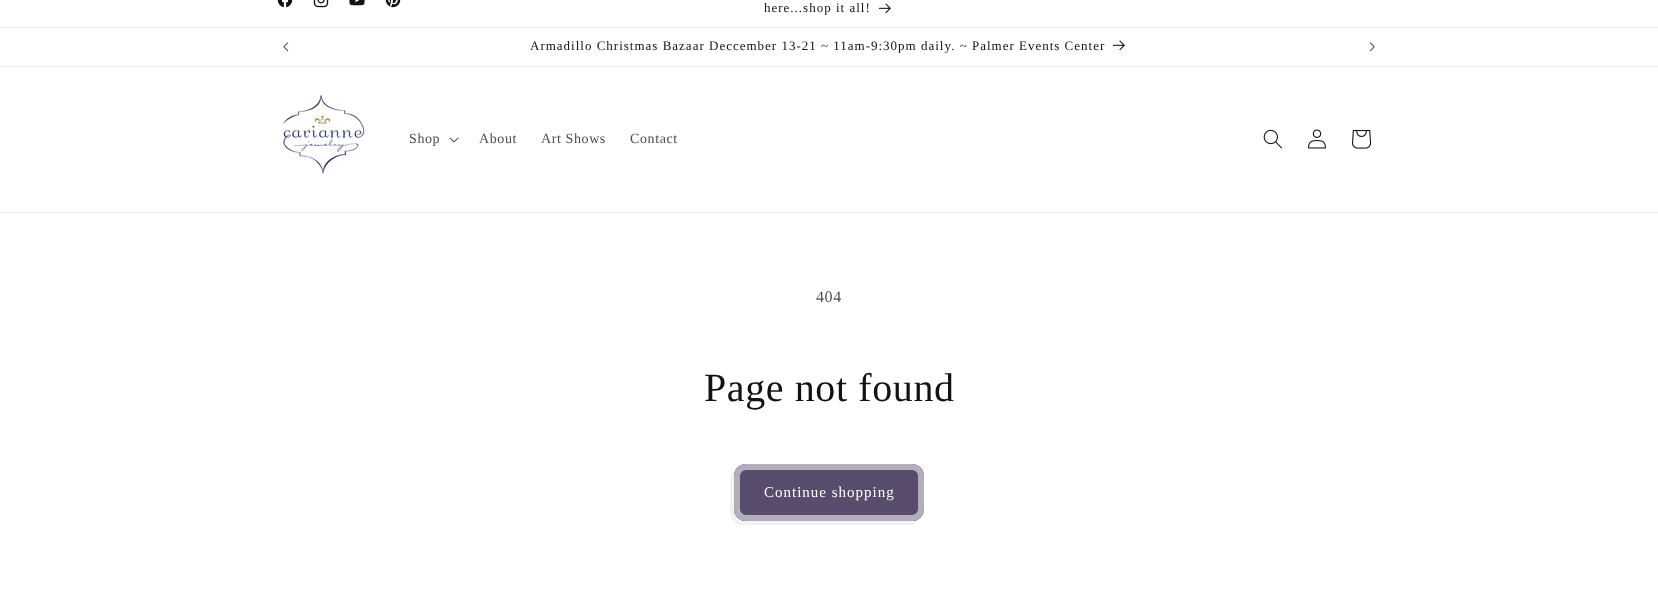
<!DOCTYPE html>
<meta charset="utf-8">
<style>body { margin: 0 } canvas { display: block }</style>
<canvas id="canvas" width="1658" height="596"></canvas>
<img id="img1" src="images/1.png" hidden>
<img id="img2" src="images/2.png" hidden>
<img id="img3" src="images/3.png" hidden>
<img id="img4" src="images/4.png" hidden>
<img id="img5" src="images/5.png" hidden>
<img id="img6" src="images/6.png" hidden>
<img id="img7" src="images/7.png" hidden>
<img id="img8" src="images/8.png" hidden>
<img id="img9" src="images/9.png" hidden>
<img id="img10" src="images/10.png" hidden>
<img id="img11" src="images/11.png" hidden>
<img id="img12" src="images/12.png" hidden>
<img id="img13" src="images/13.png" hidden>
<script>
window.onload = function () {
    const canvas = document.getElementById('canvas');
    const context = canvas.getContext('2d');
    context.miterLimit = 4;
    context.fontKerning = 'normal';

    context.fillStyle = 'rgb(255, 255, 255)';
    context.fillRect(0, 0, 1658, 596);
    context.fillStyle = 'rgb(236, 236, 236)';
    context.fillRect(0, 27, 1658, 1);
    context.drawImage(document.getElementById('img1'), 277, 0, 16, 8);
    context.drawImage(document.getElementById('img2'), 313, 0, 16, 8);
    context.drawImage(document.getElementById('img3'), 349, 0, 16, 6);
    context.drawImage(document.getElementById('img4'), 385, 0, 16, 8);
    context.drawImage(document.getElementById('img5'), 879, 3, 12, 10);
    context.fillRect(0, 66, 1658, 1);
    context.drawImage(document.getElementById('img6'), 283, 42, 6, 10);
    context.drawImage(document.getElementById('img7'), 1113, 40, 12, 11);
    context.drawImage(document.getElementById('img8'), 1369, 42, 6, 10);
    context.fillRect(0, 212, 1658, 1);
    context.drawImage(document.getElementById('img9'), 283, 94, 84, 80);
    context.drawImage(document.getElementById('img10'), 449, 137, 10, 6);
    context.drawImage(document.getElementById('img11'), 1263, 129, 19, 20);
    context.drawImage(document.getElementById('img12'), 1308, 129, 18, 20);
    context.drawImage(document.getElementById('img13'), 1352, 130, 20, 19);
    context.fillStyle = 'rgb(243, 243, 243)';
    context.beginPath();
    context.moveTo(736, 470);
    context.bezierCurveTo(732, 472, 730, 476, 730, 480);
    context.lineTo(730, 513);
    context.bezierCurveTo(730, 520, 735, 525, 742, 525);
    context.lineTo(908, 525);
    context.bezierCurveTo(912, 525, 916, 523, 918, 519);
    context.bezierCurveTo(916, 520, 914, 521, 912, 521);
    context.lineTo(746, 521);
    context.bezierCurveTo(739, 521, 734, 516, 734, 509);
    context.lineTo(734, 476);
    context.bezierCurveTo(734, 474, 735, 472, 736, 470);
    context.closePath();
    context.fill();
    context.fillStyle = 'rgb(87, 76, 107)';
    context.beginPath();
    context.roundRect(734, 464, 190, 57, 12);
    context.fill();
    context.beginPath();
    context.roundRect(737, 467, 184, 51, 9);
    context.strokeStyle = 'rgb(87, 76, 107)';
    context.lineWidth = 6;
    context.stroke();
    context.beginPath();
    context.roundRect(737, 467, 184, 51, 9);
    context.strokeStyle = 'rgba(255, 255, 255, 0.55)';
    context.stroke();
    context.letterSpacing = '1px';
    context.font = '13px Liberation Serif';
    context.fillStyle = 'rgb(18, 18, 18)';
    context.fillText('here...shop it all!', 764, 12);
    context.fillText('Armadillo Christmas Bazaar Deccember 13-21 ~ 11am-9:30pm daily. ~ Palmer Events Center', 530, 50);
    context.letterSpacing = '0.6px';
    context.font = '14px Liberation Serif';
    context.fillStyle = 'rgb(77, 77, 77)';
    context.fillText('Shop', 409, 143);
    context.fillText('About', 479, 143);
    context.fillText('Art Shows', 541, 143);
    context.fillText('Contact', 630, 143);
    context.font = '16px Liberation Serif';
    context.fillText('404', 816, 302);
    context.font = '40px Liberation Serif';
    context.fillStyle = 'rgb(18, 18, 18)';
    context.fillText('Page not found', 704, 401);
    context.letterSpacing = '1px';
    context.font = '15px Liberation Serif';
    context.fillStyle = 'rgb(255, 255, 255)';
    context.fillText('Continue shopping', 764, 497);
};
</script>
